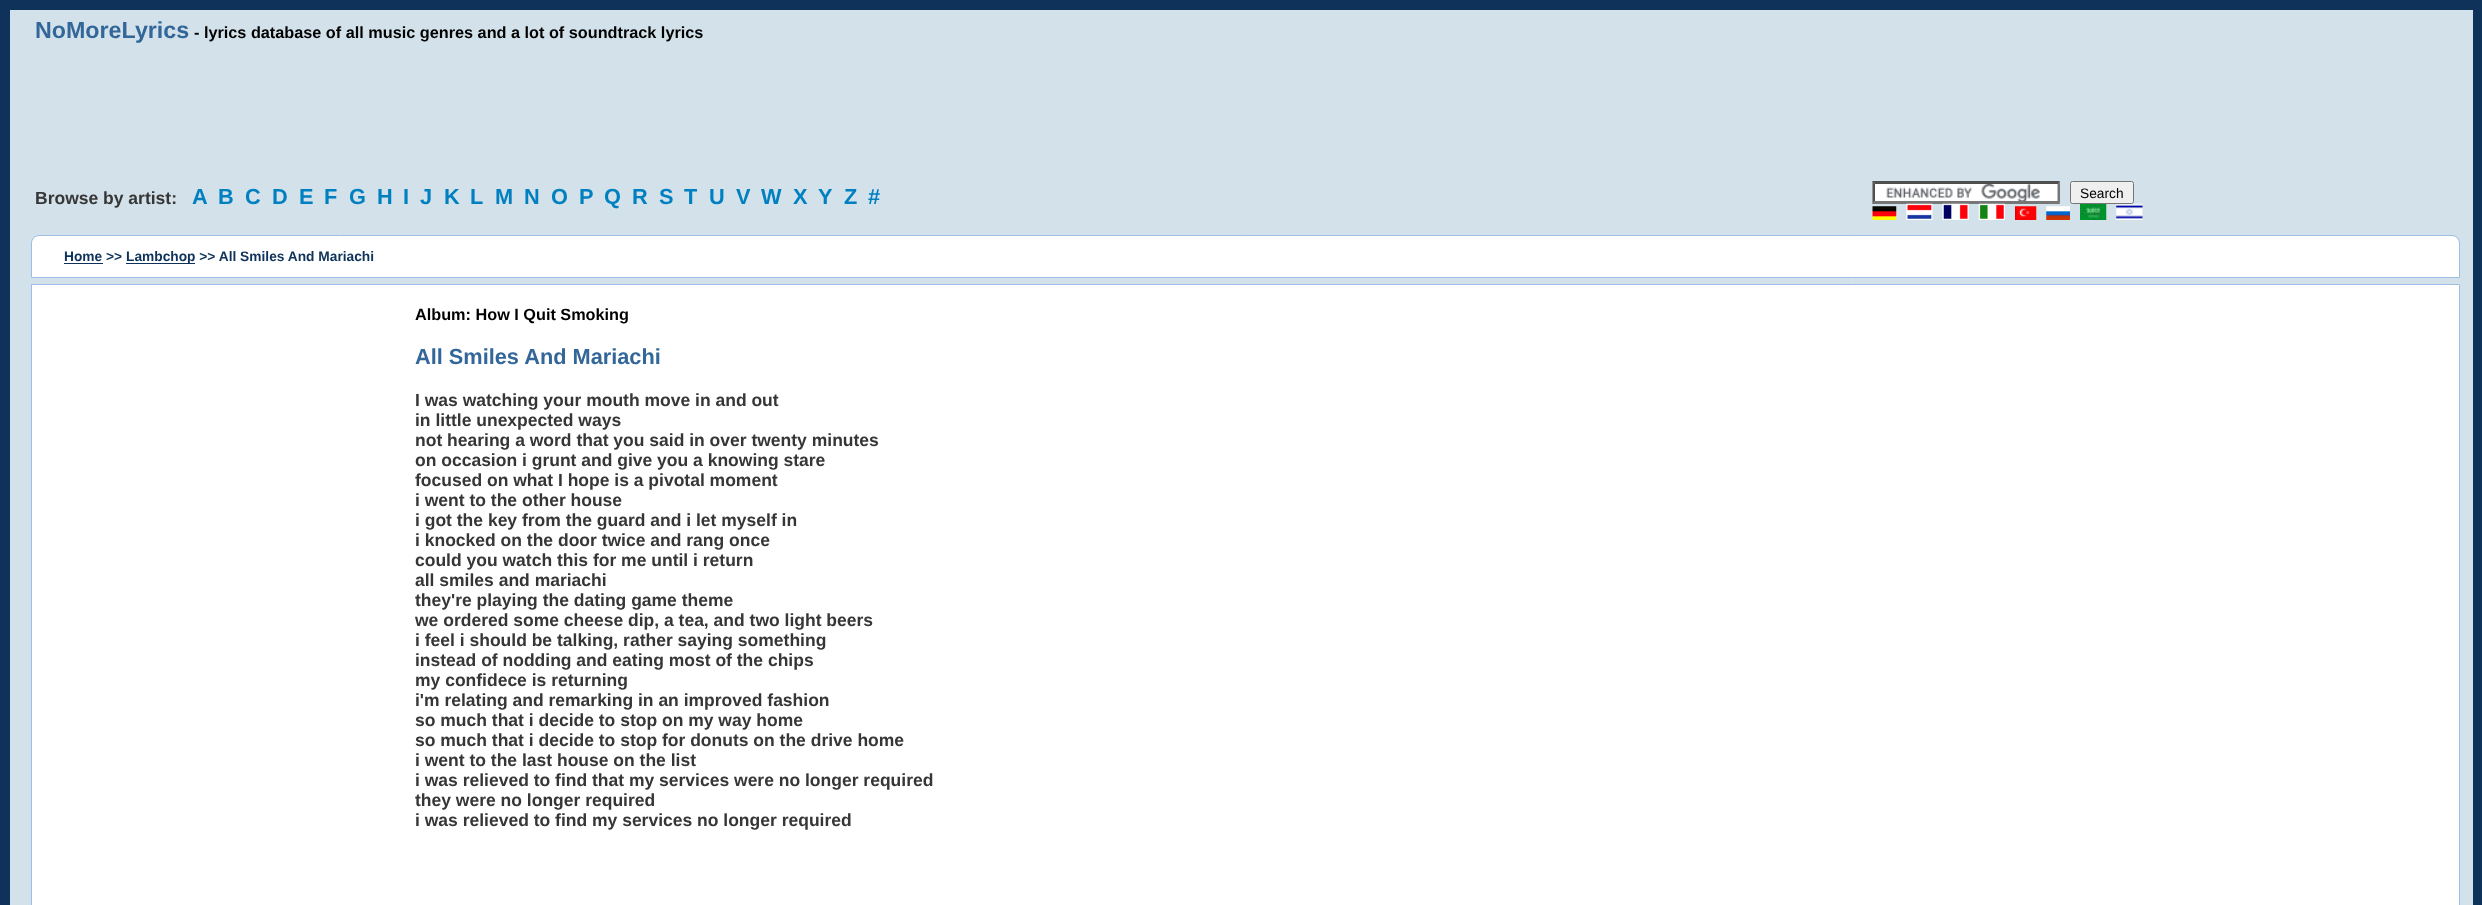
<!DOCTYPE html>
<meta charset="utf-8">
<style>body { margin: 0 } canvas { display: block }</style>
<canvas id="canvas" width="2482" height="905"></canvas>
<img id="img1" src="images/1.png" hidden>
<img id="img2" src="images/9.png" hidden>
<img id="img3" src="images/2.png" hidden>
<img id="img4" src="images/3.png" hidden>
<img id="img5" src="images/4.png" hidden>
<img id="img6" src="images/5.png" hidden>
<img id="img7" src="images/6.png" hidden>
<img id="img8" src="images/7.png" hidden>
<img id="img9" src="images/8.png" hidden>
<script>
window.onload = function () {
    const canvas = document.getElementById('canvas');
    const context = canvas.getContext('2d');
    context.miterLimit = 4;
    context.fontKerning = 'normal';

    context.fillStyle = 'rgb(14, 50, 89)';
    context.fillRect(0, 0, 2482, 905);
    context.fillStyle = 'rgb(211, 226, 234)';
    context.fillRect(10, 10, 2463, 895);
    context.fillStyle = 'rgb(255, 255, 255)';
    context.fillRect(1873, 181, 187, 23);
    context.drawImage(document.getElementById('img1'), 1886, 184, 154, 17);
    context.fillStyle = 'rgb(79, 79, 79)';
    context.beginPath();
    context.moveTo(1872, 181);
    context.lineTo(2060, 181);
    context.lineTo(2058, 184);
    context.lineTo(1875, 184);
    context.closePath();
    context.fill();
    context.fillStyle = 'rgb(118, 118, 118)';
    context.beginPath();
    context.moveTo(2060, 181);
    context.lineTo(2060, 204);
    context.lineTo(2057.5, 201);
    context.lineTo(2057.5, 184);
    context.closePath();
    context.fill();
    context.beginPath();
    context.moveTo(2060, 204);
    context.lineTo(1872, 204);
    context.lineTo(1875, 201);
    context.lineTo(2058, 201);
    context.closePath();
    context.fill();
    context.fillStyle = 'rgb(79, 79, 79)';
    context.beginPath();
    context.moveTo(1872.5, 204);
    context.lineTo(1872.5, 181);
    context.lineTo(1875, 184);
    context.lineTo(1875, 201);
    context.closePath();
    context.fill();
    context.drawImage(document.getElementById('img2'), 2116, 203, 27, 17);
    context.fillStyle = 'rgb(239, 239, 239)';
    context.beginPath();
    context.roundRect(2070.5, 181.5, 63, 22, 2);
    context.fill();
    context.strokeStyle = 'rgb(118, 118, 118)';
    context.stroke();
    context.drawImage(document.getElementById('img3'), 1872, 206, 25, 14);
    context.drawImage(document.getElementById('img4'), 1906, 203, 27, 17);
    context.drawImage(document.getElementById('img5'), 1942, 203, 27, 17);
    context.drawImage(document.getElementById('img6'), 1978, 203, 27, 17);
    context.drawImage(document.getElementById('img7'), 2015, 206, 22, 14);
    context.drawImage(document.getElementById('img8'), 2046, 206, 24, 14);
    context.drawImage(document.getElementById('img9'), 2080, 204, 27, 16);
    context.fillStyle = 'rgb(255, 255, 255)';
    context.beginPath();
    context.roundRect(31.5, 235.5, 2428, 42, [7.5, 7.5, 0, 0]);
    context.fill();
    context.strokeStyle = 'rgb(156, 190, 230)';
    context.stroke();
    context.fillStyle = 'rgb(14, 50, 89)';
    context.fillRect(64, 263, 39, 1);
    context.fillRect(126, 263, 69, 1);
    context.fillStyle = 'rgb(255, 255, 255)';
    context.beginPath();
    context.rect(31.5, 284.5, 2428, 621);
    context.fill();
    context.stroke();
    context.font = 'bold 23.25px Liberation Sans';
    context.fillStyle = 'rgb(51, 102, 153)';
    context.fillText('NoMoreLyrics', 35, 38);
    context.font = 'bold 16.25px Liberation Sans';
    context.fillStyle = 'rgb(0, 0, 0)';
    context.fillText('- lyrics database of all music genres and a lot of soundtrack lyrics', 194, 38);
    context.font = 'bold 17.5px Liberation Sans';
    context.fillStyle = 'rgb(54, 54, 54)';
    context.fillText('Browse by artist:', 35, 204);
    context.letterSpacing = '6px';
    context.font = 'bold 21.75px Liberation Sans';
    context.fillStyle = 'rgb(0, 128, 193)';
    context.fillText('A', 192, 204);
    context.fillText('B', 218, 204);
    context.fillText('C', 245, 204);
    context.fillText('D', 272, 204);
    context.fillText('E', 299, 204);
    context.fillText('F', 324, 204);
    context.fillText('G', 349, 204);
    context.fillText('H', 377, 204);
    context.fillText('I', 403, 204);
    context.fillText('J', 420, 204);
    context.fillText('K', 444, 204);
    context.fillText('L', 470, 204);
    context.fillText('M', 495, 204);
    context.fillText('N', 524, 204);
    context.fillText('O', 551, 204);
    context.fillText('P', 579, 204);
    context.fillText('Q', 604, 204);
    context.fillText('R', 632, 204);
    context.fillText('S', 659, 204);
    context.fillText('T', 684, 204);
    context.fillText('U', 709, 204);
    context.fillText('V', 736, 204);
    context.fillText('W', 761, 204);
    context.fillText('X', 793, 204);
    context.fillText('Y', 818, 204);
    context.fillText('Z', 844, 204);
    context.fillText('#', 868, 204);
    context.letterSpacing = '0px';
    context.font = '13.75px Liberation Sans';
    context.fillStyle = 'rgb(0, 0, 0)';
    context.fillText('Search', 2080, 198);
    context.font = 'bold 13.75px Liberation Sans';
    context.fillStyle = 'rgb(14, 50, 89)';
    context.fillText('Home >>', 64, 261);
    context.fillText('Lambchop >> All Smiles And Mariachi', 126, 261);
    context.font = 'bold 16.25px Liberation Sans';
    context.fillStyle = 'rgb(0, 0, 0)';
    context.fillText('Album: How I Quit Smoking', 415, 320);
    context.font = 'bold 21.75px Liberation Sans';
    context.fillStyle = 'rgb(51, 102, 153)';
    context.fillText('All Smiles And Mariachi', 415, 364);
    context.font = 'bold 17.5px Liberation Sans';
    context.fillStyle = 'rgb(54, 54, 54)';
    context.fillText('I was watching your mouth move in and out', 415, 406);
    context.fillText('in little unexpected ways', 415, 426);
    context.fillText('not hearing a word that you said in over twenty minutes', 415, 446);
    context.fillText('on occasion i grunt and give you a knowing stare', 415, 466);
    context.fillText('focused on what I hope is a pivotal moment', 415, 486);
    context.fillText('i went to the other house', 415, 506);
    context.fillText('i got the key from the guard and i let myself in', 415, 526);
    context.fillText('i knocked on the door twice and rang once', 415, 546);
    context.fillText('could you watch this for me until i return', 415, 566);
    context.fillText('all smiles and mariachi', 415, 586);
    context.fillText('they\'re playing the dating game theme', 415, 606);
    context.fillText('we ordered some cheese dip, a tea, and two light beers', 415, 626);
    context.fillText('i feel i should be talking, rather saying something', 415, 646);
    context.fillText('instead of nodding and eating most of the chips', 415, 666);
    context.fillText('my confidece is returning', 415, 686);
    context.fillText('i\'m relating and remarking in an improved fashion', 415, 706);
    context.fillText('so much that i decide to stop on my way home', 415, 726);
    context.fillText('so much that i decide to stop for donuts on the drive home', 415, 746);
    context.fillText('i went to the last house on the list', 415, 766);
    context.fillText('i was relieved to find that my services were no longer required', 415, 786);
    context.fillText('they were no longer required', 415, 806);
    context.fillText('i was relieved to find my services no longer required', 415, 826);
};
</script>
